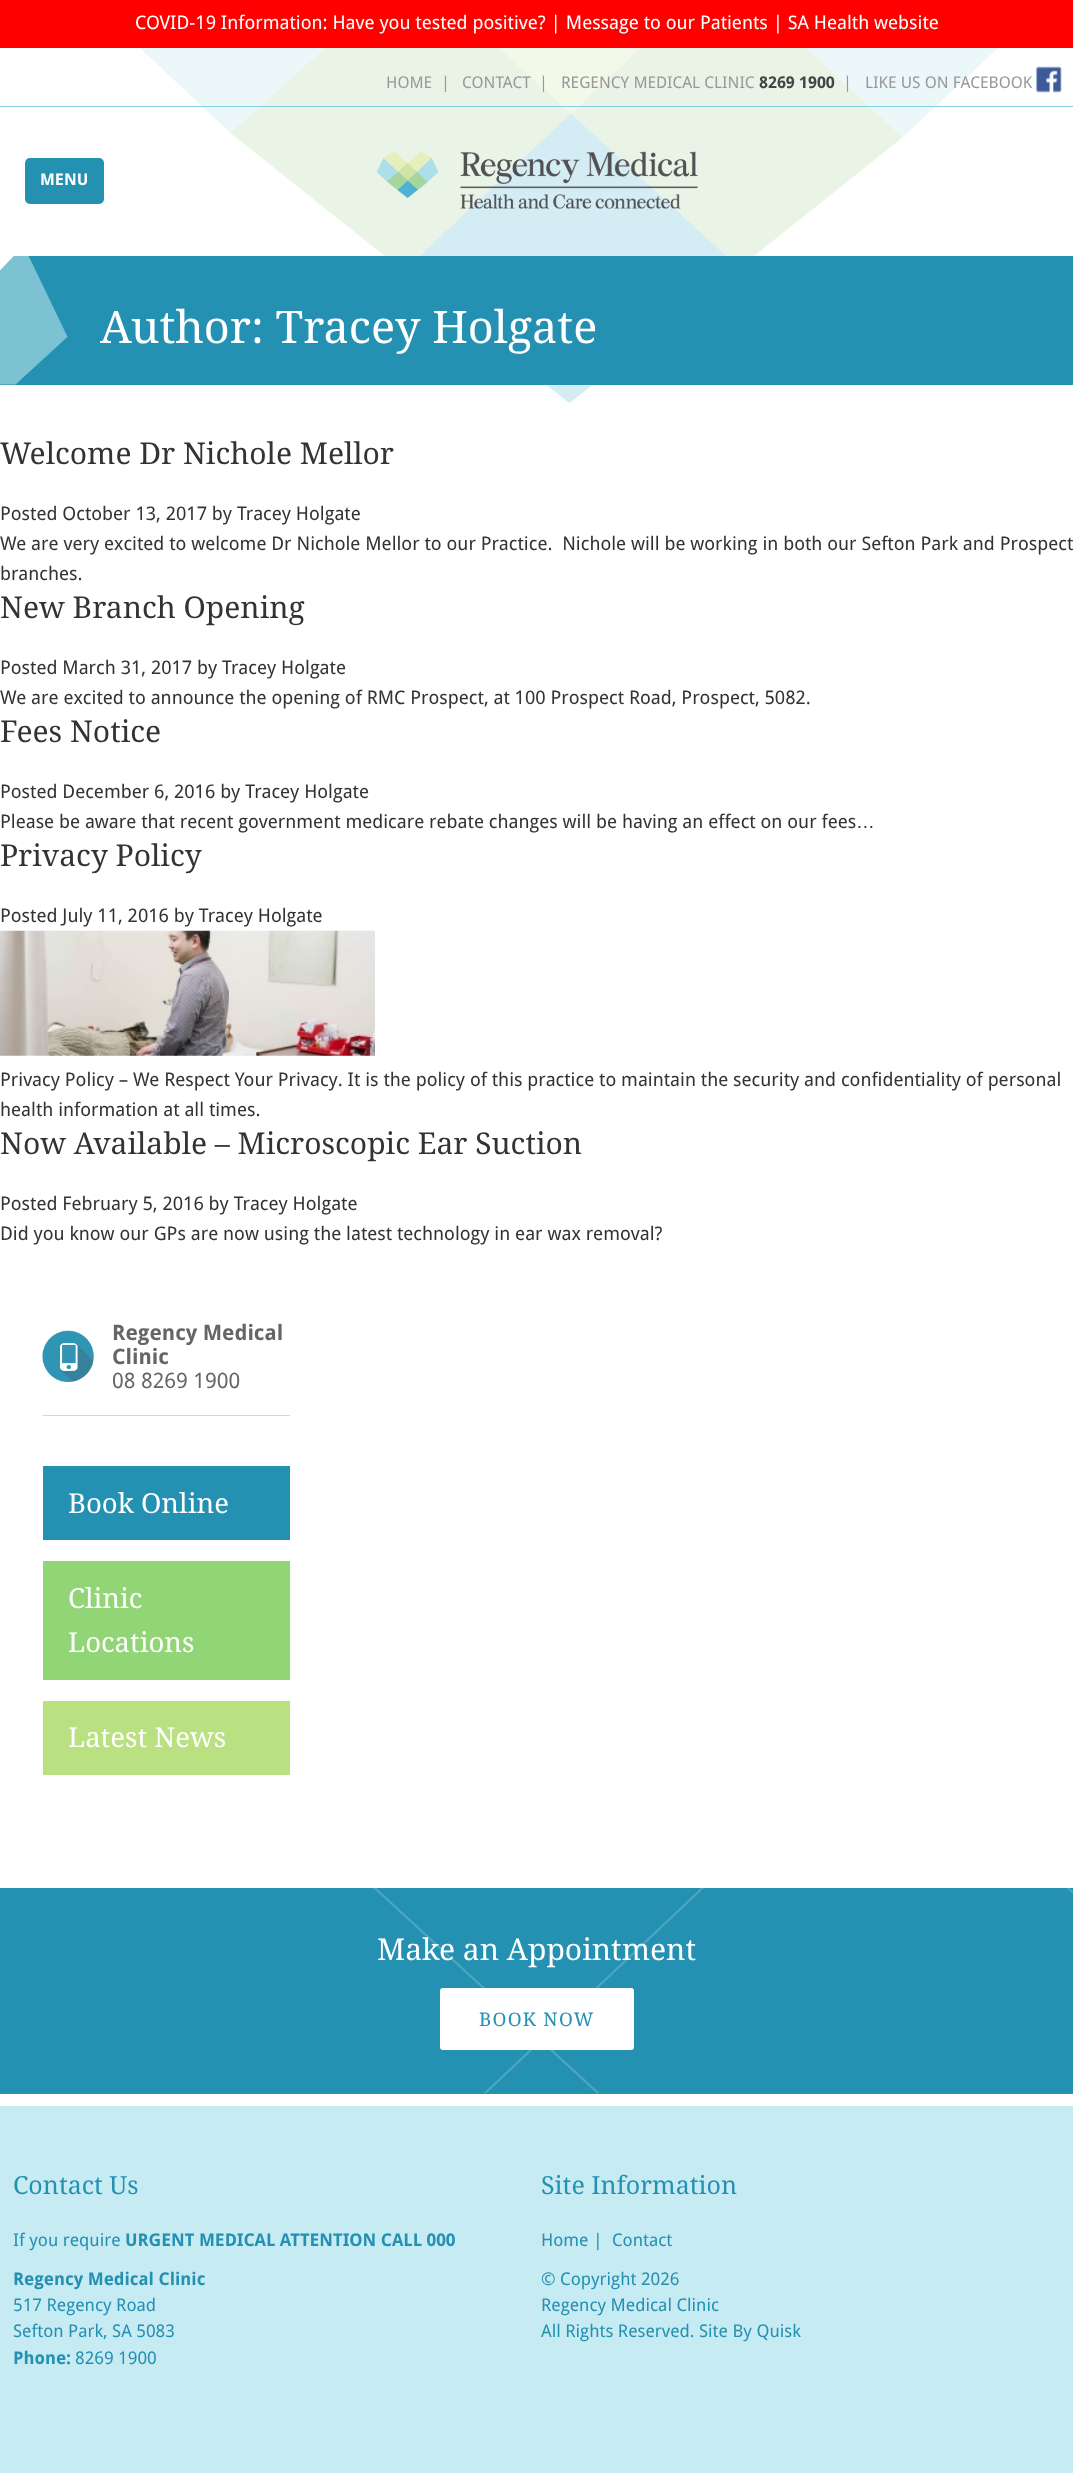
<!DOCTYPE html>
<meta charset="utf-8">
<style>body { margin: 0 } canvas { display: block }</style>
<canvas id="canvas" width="1073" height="2473"></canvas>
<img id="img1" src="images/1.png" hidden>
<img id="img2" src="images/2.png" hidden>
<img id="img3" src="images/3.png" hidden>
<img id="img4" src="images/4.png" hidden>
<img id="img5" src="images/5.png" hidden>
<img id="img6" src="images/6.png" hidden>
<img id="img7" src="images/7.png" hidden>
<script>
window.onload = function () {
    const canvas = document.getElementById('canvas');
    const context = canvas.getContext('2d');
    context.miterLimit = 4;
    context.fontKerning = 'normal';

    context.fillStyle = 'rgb(255, 255, 255)';
    context.fillRect(0, 0, 1073, 2473);
    context.drawImage(document.getElementById('img1'), 140, 48, 858, 355);
    context.fillStyle = 'rgb(255, 0, 0)';
    context.fillRect(0, 0, 1073, 48);
    context.fillStyle = 'rgb(132, 208, 222)';
    context.fillRect(0, 106, 1073, 1);
    context.drawImage(document.getElementById('img2'), 1036, 66, 26, 27);
    context.fillStyle = 'rgb(36, 145, 179)';
    context.beginPath();
    context.roundRect(25, 158, 79, 46, 5);
    context.fill();
    context.drawImage(document.getElementById('img3'), 376, 151, 322, 58);
    context.fillRect(0, 256, 1073, 129);
    context.drawImage(document.getElementById('img4'), 0, 256, 68, 129);
    context.drawImage(document.getElementById('img5'), 0, 930, 375, 126);
    context.drawImage(document.getElementById('img6'), 42, 1330, 52, 52);
    context.fillStyle = 'rgb(214, 214, 214)';
    context.fillRect(43, 1415, 247, 1);
    context.fillStyle = 'rgb(36, 145, 179)';
    context.fillRect(43, 1466, 247, 74);
    context.fillStyle = 'rgb(146, 213, 119)';
    context.fillRect(43, 1561, 247, 119);
    context.fillStyle = 'rgb(185, 225, 129)';
    context.fillRect(43, 1701, 247, 74);
    context.fillStyle = 'rgb(36, 145, 179)';
    context.fillRect(0, 1888, 1073, 206);
    context.drawImage(document.getElementById('img7'), 373, 1888, 700, 206);
    context.fillStyle = 'rgb(255, 255, 255)';
    context.beginPath();
    context.roundRect(440.5, 1988.5, 193, 61, 2);
    context.fill();
    context.strokeStyle = 'rgb(255, 255, 255)';
    context.stroke();
    context.fillStyle = 'rgb(199, 235, 242)';
    context.fillRect(0, 2106, 1073, 367);
    context.font = '18.75px Droid Sans';
    context.fillStyle = 'rgb(255, 255, 255)';
    context.fillText('COVID-19 Information: Have you tested positive? | Message to our Patients | SA Health website', 135, 29);
    context.font = '16.25px Droid Sans';
    context.fillStyle = 'rgb(153, 153, 153)';
    context.fillText('HOME', 386, 88);
    context.fillText('|', 441, 88);
    context.fillText('CONTACT', 462, 88);
    context.fillText('|', 539, 88);
    context.fillText('REGENCY MEDICAL CLINIC', 561, 88);
    context.font = 'bold 16.25px Droid Sans';
    context.fillStyle = 'rgb(68, 68, 68)';
    context.fillText('8269 1900', 759, 88);
    context.font = '16.25px Droid Sans';
    context.fillStyle = 'rgb(153, 153, 153)';
    context.fillText('|', 843, 88);
    context.fillText('LIKE US ON FACEBOOK', 865, 88);
    context.font = 'bold 16.25px Droid Sans';
    context.fillStyle = 'rgb(255, 255, 255)';
    context.fillText('MENU', 40, 185);
    context.font = '45px Droid Serif';
    context.fillText('Author: Tracey Holgate', 100, 343);
    context.font = '30px Droid Serif';
    context.fillStyle = 'rgb(51, 51, 51)';
    context.fillText('Welcome Dr Nichole Mellor', 0, 464);
    context.font = '18.75px Droid Sans';
    context.fillText('Posted October 13, 2017 by Tracey Holgate', 0, 520);
    context.fillText('We are very excited to welcome Dr Nichole Mellor to our Practice.  Nichole will be working in both our Sefton Park and Prospect', 0, 550);
    context.fillText('branches.', 0, 580);
    context.font = '30px Droid Serif';
    context.fillText('New Branch Opening', 0, 618);
    context.font = '18.75px Droid Sans';
    context.fillText('Posted March 31, 2017 by Tracey Holgate', 0, 674);
    context.fillText('We are excited to announce the opening of RMC Prospect, at 100 Prospect Road, Prospect, 5082.', 0, 704);
    context.font = '30px Droid Serif';
    context.fillText('Fees Notice', 0, 742);
    context.font = '18.75px Droid Sans';
    context.fillText('Posted December 6, 2016 by Tracey Holgate', 0, 798);
    context.fillText('Please be aware that recent government medicare rebate changes will be having an effect on our fees', 0, 828);
    context.font = '18.75px Liberation Sans';
    context.fillText('…', 856, 828);
    context.font = '30px Droid Serif';
    context.fillText('Privacy Policy', 0, 866);
    context.font = '18.75px Droid Sans';
    context.fillText('Posted July 11, 2016 by Tracey Holgate', 0, 922);
    context.fillText('Privacy Policy – We Respect Your Privacy. It is the policy of this practice to maintain the security and confidentiality of personal', 0, 1086);
    context.fillText('health information at all times.', 0, 1116);
    context.font = '30px Droid Serif';
    context.fillText('Now Available – Microscopic Ear Suction', 0, 1154);
    context.font = '18.75px Droid Sans';
    context.fillText('Posted February 5, 2016 by Tracey Holgate', 0, 1210);
    context.fillText('Did you know our GPs are now using the latest technology in ear wax removal?', 0, 1240);
    context.font = 'bold 21.25px Droid Sans';
    context.fillStyle = 'rgb(102, 102, 102)';
    context.fillText('Regency Medical', 112, 1340);
    context.fillText('Clinic', 112, 1364);
    context.font = '21.25px Droid Sans';
    context.fillText('08 8269 1900', 112, 1388);
    context.font = '27.5px Droid Serif';
    context.fillStyle = 'rgb(255, 255, 255)';
    context.fillText('Book Online', 68, 1513);
    context.fillText('Clinic', 68, 1608);
    context.fillText('Locations', 68, 1652);
    context.fillText('Latest News', 68, 1747);
    context.font = '30px Droid Serif';
    context.fillText('Make an Appointment', 377, 1960);
    context.letterSpacing = '1.25px';
    context.font = '18.75px Droid Serif';
    context.fillStyle = 'rgb(36, 145, 179)';
    context.fillText('BOOK NOW', 479, 2026);
    context.letterSpacing = '0px';
    context.font = '25px Droid Serif';
    context.fillText('Contact Us', 13, 2194);
    context.font = '17.5px Droid Sans';
    context.fillText('If you require', 13, 2246);
    context.font = 'bold 17.5px Droid Sans';
    context.fillText('URGENT MEDICAL ATTENTION CALL 000', 125, 2246);
    context.fillText('Regency Medical Clinic', 13, 2285);
    context.font = '17.5px Droid Sans';
    context.fillText('517 Regency Road', 13, 2311);
    context.fillText('Sefton Park, SA 5083', 13, 2337);
    context.font = 'bold 17.5px Droid Sans';
    context.fillText('Phone:', 13, 2364);
    context.font = '17.5px Droid Sans';
    context.fillText('8269 1900', 75, 2364);
    context.font = '25px Droid Serif';
    context.fillText('Site Information', 541, 2194);
    context.font = '17.5px Droid Sans';
    context.fillText('Home |', 541, 2246);
    context.fillText('Contact', 612, 2246);
    context.fillText('© Copyright 2026', 541, 2285);
    context.fillText('Regency Medical Clinic', 541, 2311);
    context.fillText('All Rights Reserved. Site By Quisk', 541, 2337);
};
</script>
